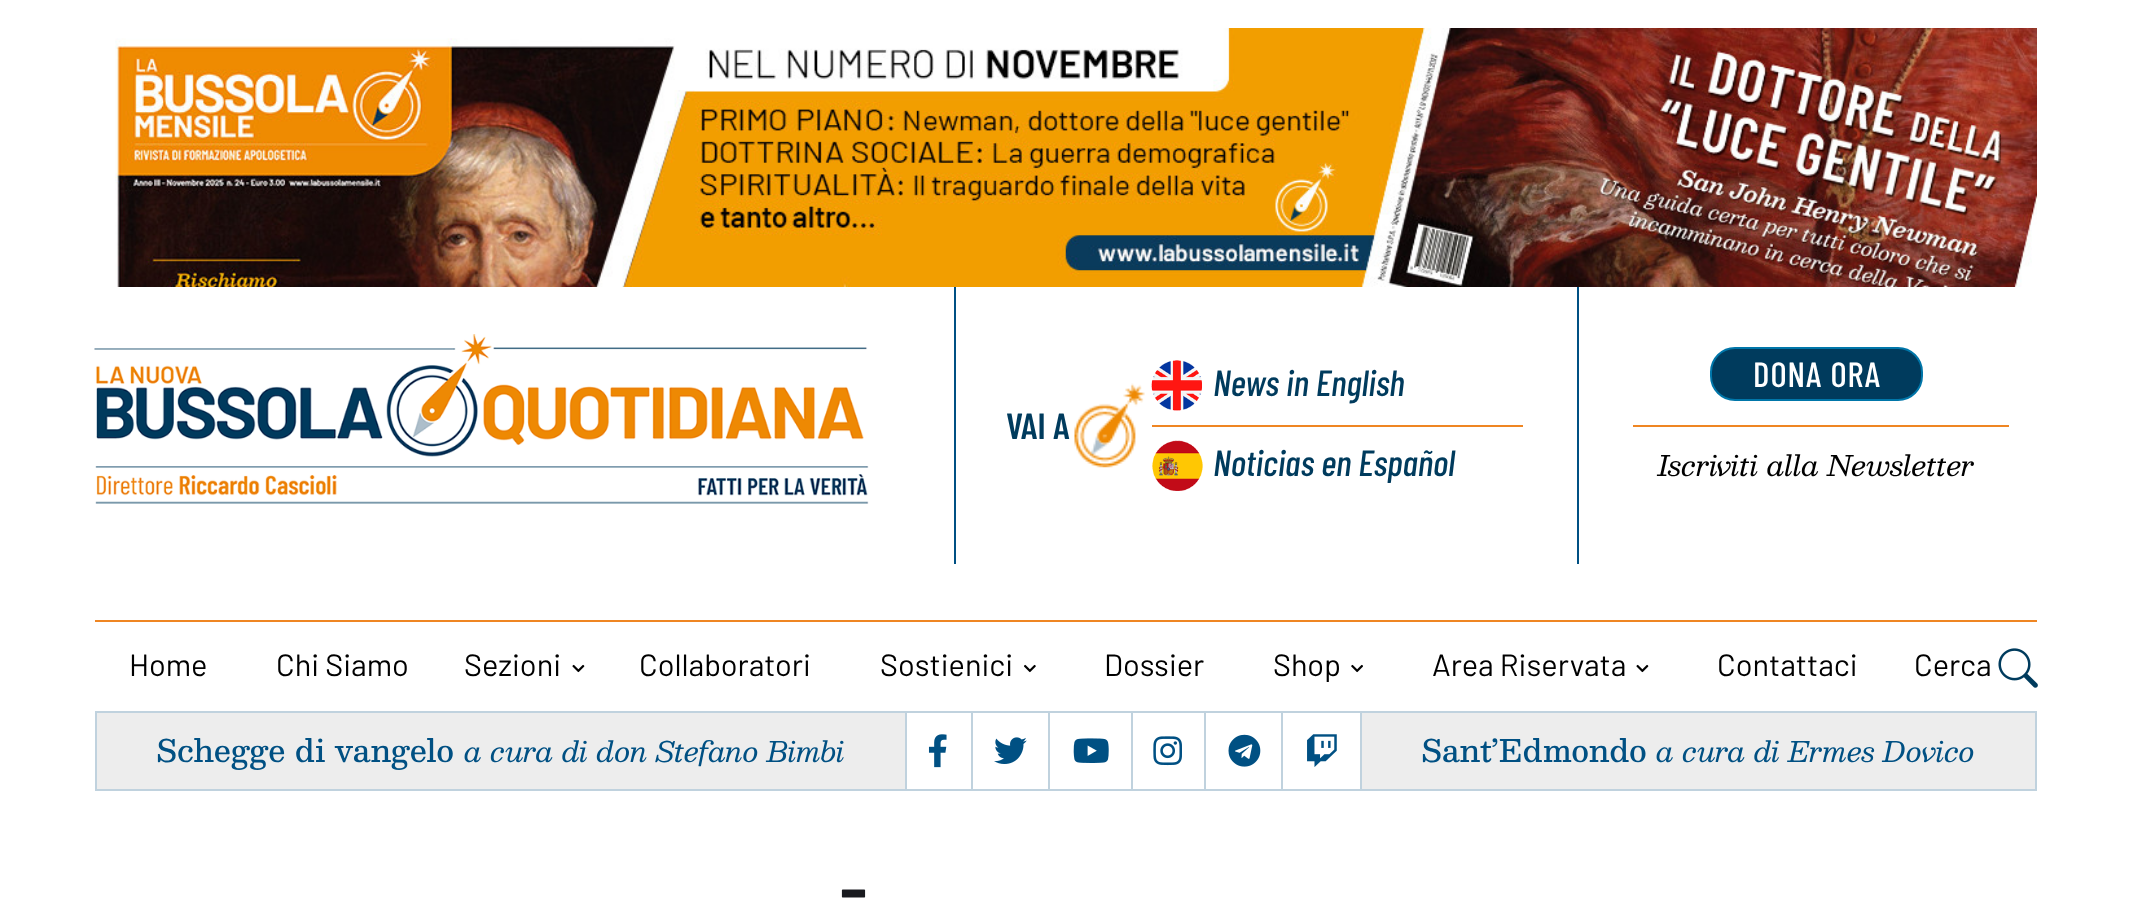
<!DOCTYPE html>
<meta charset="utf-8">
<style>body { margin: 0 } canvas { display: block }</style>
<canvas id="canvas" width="2130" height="898"></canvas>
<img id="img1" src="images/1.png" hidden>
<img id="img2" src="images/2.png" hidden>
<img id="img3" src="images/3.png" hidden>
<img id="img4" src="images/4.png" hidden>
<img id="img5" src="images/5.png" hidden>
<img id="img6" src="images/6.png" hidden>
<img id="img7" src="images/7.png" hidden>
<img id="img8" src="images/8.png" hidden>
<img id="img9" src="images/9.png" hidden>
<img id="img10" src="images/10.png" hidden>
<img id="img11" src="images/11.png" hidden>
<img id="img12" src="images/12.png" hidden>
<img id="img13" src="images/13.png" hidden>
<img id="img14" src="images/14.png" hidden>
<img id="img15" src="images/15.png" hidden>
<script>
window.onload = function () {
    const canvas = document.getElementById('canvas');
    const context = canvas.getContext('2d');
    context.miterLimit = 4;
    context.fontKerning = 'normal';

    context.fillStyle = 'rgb(255, 255, 255)';
    context.fillRect(0, 0, 2130, 898);
    context.drawImage(document.getElementById('img1'), 115, 28, 1922, 259);
    context.drawImage(document.getElementById('img2'), 94, 334, 775, 170);
    context.fillStyle = 'rgb(0, 80, 131)';
    context.fillRect(1577, 287, 2, 277);
    context.drawImage(document.getElementById('img3'), 1151, 360, 51, 51);
    context.fillRect(954, 287, 2, 277);
    context.drawImage(document.getElementById('img4'), 1074, 383, 71, 85);
    context.fillStyle = 'rgb(239, 134, 35)';
    context.fillRect(1152, 425, 371, 2);
    context.drawImage(document.getElementById('img5'), 1152, 440, 51, 51);
    context.fillStyle = 'rgb(0, 59, 93)';
    context.beginPath();
    context.roundRect(1711, 348, 211, 52, 24);
    context.fill();
    context.strokeStyle = 'rgb(0, 118, 169)';
    context.lineWidth = 2;
    context.stroke();
    context.fillStyle = 'rgb(239, 134, 35)';
    context.fillRect(1633, 425, 376, 2);
    context.fillRect(95, 620, 1942, 2);
    context.drawImage(document.getElementById('img6'), 572, 664, 13, 9);
    context.drawImage(document.getElementById('img7'), 1024, 664, 12, 9);
    context.drawImage(document.getElementById('img8'), 1351, 664, 12, 9);
    context.drawImage(document.getElementById('img6'), 1636, 664, 13, 9);
    context.drawImage(document.getElementById('img9'), 1998, 648, 40, 40);
    context.fillStyle = 'rgb(237, 237, 237)';
    context.beginPath();
    context.rect(96, 712, 810, 78);
    context.fill();
    context.strokeStyle = 'rgb(192, 210, 222)';
    context.stroke();
    context.fillStyle = 'rgb(192, 210, 222)';
    context.fillRect(907, 711, 1130, 2);
    context.fillRect(1360, 711, 2, 80);
    context.fillRect(907, 789, 455, 2);
    context.fillRect(971, 712, 2, 77);
    context.drawImage(document.getElementById('img10'), 928, 734, 19, 34);
    context.fillRect(1048, 712, 2, 77);
    context.drawImage(document.getElementById('img11'), 994, 737, 33, 27);
    context.fillRect(1131, 712, 2, 77);
    context.drawImage(document.getElementById('img12'), 1073, 738, 36, 25);
    context.fillRect(1204, 712, 2, 77);
    context.drawImage(document.getElementById('img13'), 1153, 736, 29, 30);
    context.fillRect(1281, 712, 2, 77);
    context.drawImage(document.getElementById('img14'), 1228, 734, 33, 33);
    context.drawImage(document.getElementById('img15'), 1307, 734, 30, 33);
    context.fillStyle = 'rgb(237, 237, 237)';
    context.fillRect(1362, 713, 673, 76);
    context.fillStyle = 'rgb(192, 210, 222)';
    context.fillRect(2035, 711, 2, 80);
    context.fillRect(1362, 789, 675, 2);
    context.font = 'italic 500 36.5px Barlow Condensed';
    context.fillStyle = 'rgb(0, 59, 93)';
    context.fillText('News in English', 1213, 396);
    context.font = '600 36.5px Barlow Condensed';
    context.fillText('VAI A', 1006, 439);
    context.font = 'italic 500 36.5px Barlow Condensed';
    context.fillText('Noticias en Español', 1213, 476);
    context.letterSpacing = '1px';
    context.font = '500 35px Barlow Condensed';
    context.fillStyle = 'rgb(255, 255, 255)';
    context.fillText('DONA ORA', 1753, 387);
    context.letterSpacing = '0px';
    context.font = 'italic 28px Besley';
    context.fillStyle = 'rgb(0, 0, 0)';
    context.fillText('Iscriviti alla Newsletter', 1658, 476);
    context.font = '30.75px Barlow';
    context.fillText('Home', 129, 676);
    context.fillText('Chi Siamo', 276, 676);
    context.fillText('Sezioni', 464, 676);
    context.fillText('Collaboratori', 639, 676);
    context.fillText('Sostienici', 880, 676);
    context.fillText('Dossier', 1104, 676);
    context.fillText('Shop', 1273, 676);
    context.fillText('Area Riservata', 1432, 676);
    context.fillText('Contattaci', 1717, 676);
    context.fillText('Cerca', 1914, 676);
    context.font = '500 30.75px Besley';
    context.fillStyle = 'rgb(0, 80, 131)';
    context.fillText('Schegge di vangelo', 156, 762);
    context.font = 'italic 28px Besley';
    context.fillText('a cura di don Stefano Bimbi', 464, 762);
    context.font = '500 30.75px Besley';
    context.fillText('Sant’Edmondo', 1421, 762);
    context.font = 'italic 28px Besley';
    context.fillText('a cura di Ermes Dovico', 1656, 762);
    context.font = 'bold 66px Barlow';
    context.fillStyle = 'rgb(25, 26, 31)';
    context.fillText('-', 840, 913);
};
</script>
